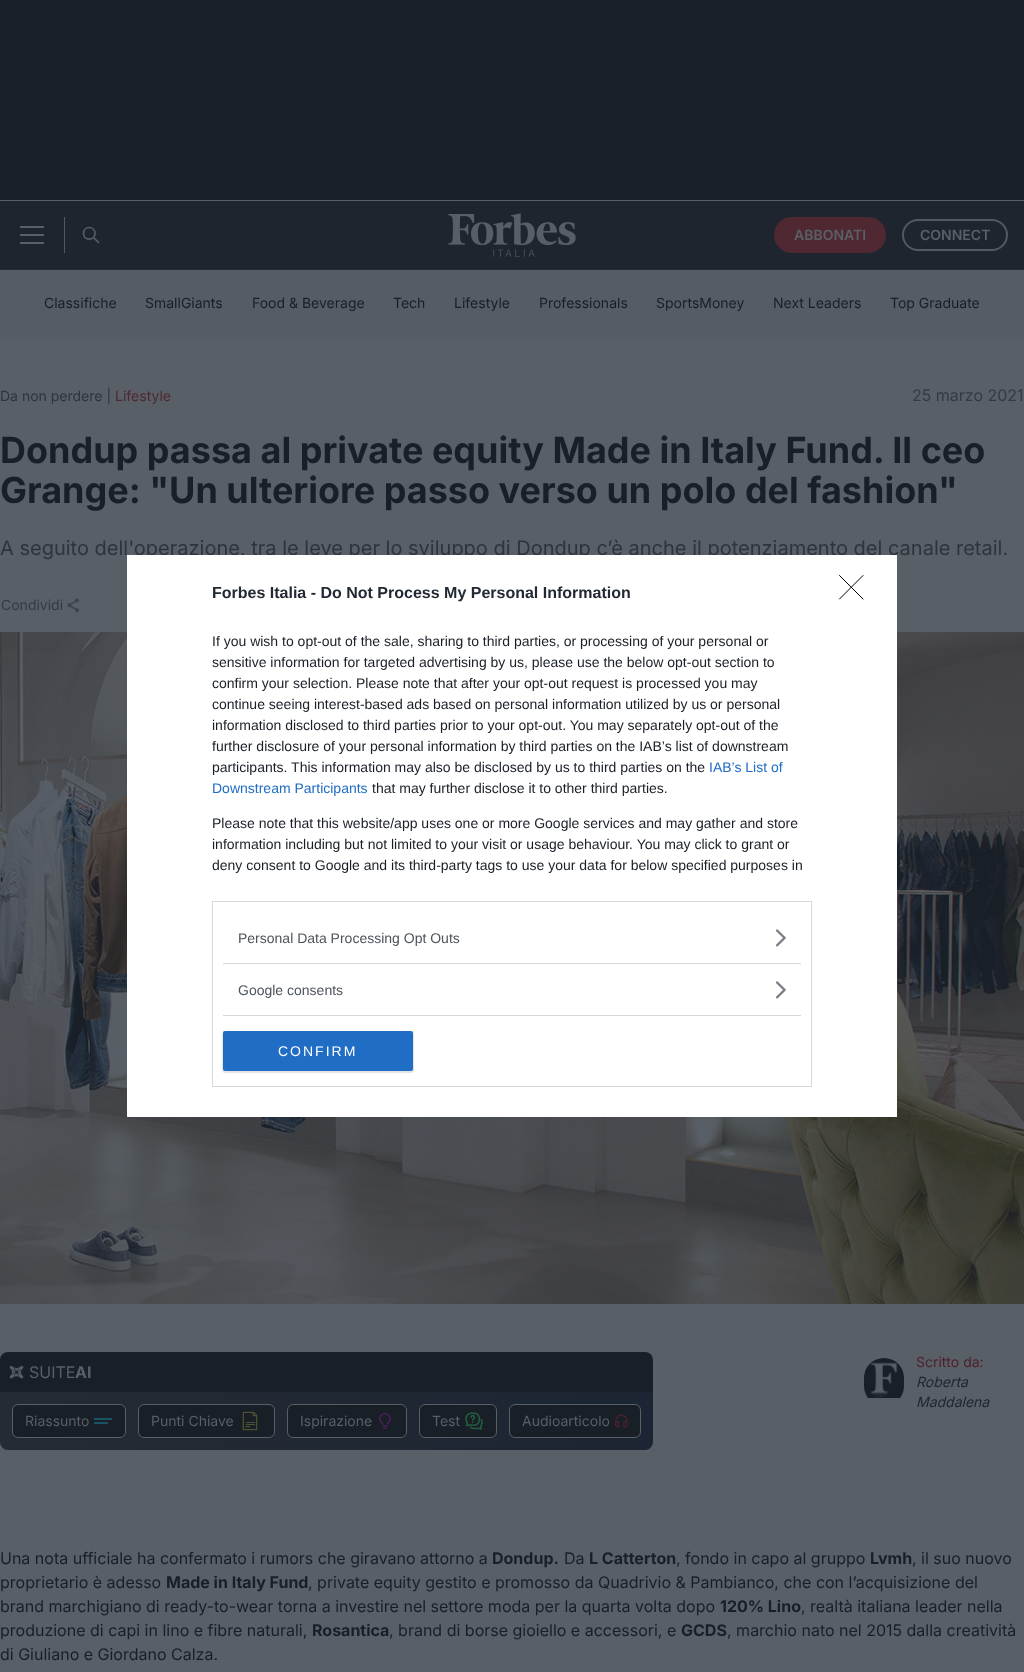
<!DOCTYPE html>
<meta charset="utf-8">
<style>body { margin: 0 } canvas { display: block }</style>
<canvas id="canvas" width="1024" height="1672"></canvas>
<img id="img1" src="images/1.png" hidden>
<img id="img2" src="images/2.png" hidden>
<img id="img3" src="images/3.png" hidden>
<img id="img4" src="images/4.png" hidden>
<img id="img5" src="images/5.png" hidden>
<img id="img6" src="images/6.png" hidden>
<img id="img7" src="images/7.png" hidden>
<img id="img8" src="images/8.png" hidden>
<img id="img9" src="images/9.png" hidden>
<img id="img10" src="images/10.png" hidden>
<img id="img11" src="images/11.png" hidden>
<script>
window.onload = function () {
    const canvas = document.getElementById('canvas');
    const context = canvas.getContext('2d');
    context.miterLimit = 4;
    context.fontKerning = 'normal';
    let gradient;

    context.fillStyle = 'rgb(25, 31, 39)';
    context.fillRect(0, 0, 1024, 1672);
    context.fillStyle = 'rgb(89, 95, 103)';
    context.fillRect(0, 200, 1024, 1472);
    context.fillStyle = 'rgb(31, 37, 46)';
    context.fillRect(0, 201, 1024, 68);
    context.fillStyle = 'rgb(89, 95, 103)';
    context.fillRect(20, 226, 24, 2);
    context.fillRect(20, 234, 24, 2);
    context.fillRect(20, 242, 24, 2);
    context.fillStyle = 'rgb(82, 89, 98)';
    context.fillRect(64, 217, 1, 36);
    context.beginPath();
    context.moveTo(98.5, 242.5);
    context.lineTo(93.5, 237.5);
    context.moveTo(95, 233.5);
    context.bezierCurveTo(95, 241, 83.5, 241, 83.5, 233.5);
    context.bezierCurveTo(83.5, 225.5, 95, 225.5, 95, 233.5);
    context.closePath();
    context.strokeStyle = 'rgb(89, 95, 103)';
    context.lineWidth = 1.7;
    context.lineCap = 'round';
    context.lineJoin = 'round';
    context.stroke();
    context.drawImage(document.getElementById('img1'), 448, 213, 128, 44);
    context.fillStyle = 'rgb(80, 40, 49)';
    context.beginPath();
    context.roundRect(774, 217, 112, 36, 18);
    context.fill();
    context.beginPath();
    context.roundRect(903, 220, 104, 30, 15);
    context.strokeStyle = 'rgb(82, 89, 98)';
    context.lineWidth = 2;
    context.lineJoin = 'miter';
    context.stroke();
    context.fillStyle = 'rgb(37, 43, 51)';
    context.fillRect(0, 269, 1024, 1);
    context.fillStyle = 'rgb(86, 92, 100)';
    context.fillRect(0, 270, 1024, 67);
    context.drawImage(document.getElementById('img2'), 67, 598, 12, 15);
    context.drawImage(document.getElementById('img3'), 0, 632, 1024, 672);
    context.fillStyle = 'rgb(25, 31, 39)';
    context.beginPath();
    context.roundRect(0, 1352, 653, 40, [8, 8, 0, 0]);
    context.fill();
    context.drawImage(document.getElementById('img4'), 9, 1366, 15, 13);
    gradient = context.createLinearGradient(0, 1421, 653, 1421);
    gradient.addColorStop(0, 'rgb(37, 43, 51)');
    gradient.addColorStop(1, 'rgb(27, 37, 51)');
    context.fillStyle = gradient;
    context.beginPath();
    context.roundRect(0, 1392, 653, 58, [0, 0, 8, 8]);
    context.fill();
    context.fillStyle = 'rgb(25, 31, 39)';
    context.beginPath();
    context.roundRect(12.5, 1404.5, 113, 33, 5.5);
    context.fill();
    context.strokeStyle = 'rgb(89, 95, 103)';
    context.lineWidth = 1;
    context.stroke();
    context.drawImage(document.getElementById('img5'), 94, 1418, 18, 6);
    context.beginPath();
    context.roundRect(138.5, 1404.5, 136, 33, 5.5);
    context.fill();
    context.stroke();
    context.drawImage(document.getElementById('img6'), 242, 1411, 16, 20);
    context.beginPath();
    context.roundRect(287.5, 1404.5, 119, 33, 5.5);
    context.fill();
    context.stroke();
    context.drawImage(document.getElementById('img7'), 379, 1413, 12, 16);
    context.beginPath();
    context.roundRect(419.5, 1404.5, 77, 33, 5.5);
    context.fill();
    context.stroke();
    context.drawImage(document.getElementById('img8'), 465, 1412, 18, 18);
    context.beginPath();
    context.roundRect(509.5, 1404.5, 131, 33, 5.5);
    context.fill();
    context.stroke();
    context.drawImage(document.getElementById('img9'), 614, 1414, 14, 14);
    context.drawImage(document.getElementById('img10'), 864, 1358, 40, 40);
    context.font = '600 14px Inter';
    context.fillStyle = 'rgb(89, 95, 103)';
    context.fillText('ABBONATI', 794, 240);
    context.fillText('CONNECT', 920, 240);
    context.font = '14px Inter';
    context.fillStyle = 'rgb(25, 31, 39)';
    context.fillText('Classifiche', 44, 308);
    context.fillText('SmallGiants', 145, 308);
    context.fillText('Food & Beverage', 252, 308);
    context.fillText('Tech', 393, 308);
    context.fillText('Lifestyle', 454, 308);
    context.fillText('Professionals', 539, 308);
    context.fillText('SportsMoney', 656, 308);
    context.fillText('Next Leaders', 773, 308);
    context.fillText('Top Graduate', 890, 308);
    context.fillStyle = 'rgb(46, 52, 60)';
    context.fillText('Da non perdere |', 0, 401);
    context.fillStyle = 'rgb(80, 40, 49)';
    context.fillText('Lifestyle', 115, 401);
    context.font = '16px Inter';
    context.fillStyle = 'rgb(52, 59, 71)';
    context.fillText('25 marzo 2021', 912, 401);
    context.font = 'bold 36px Inter';
    context.fillStyle = 'rgb(25, 31, 39)';
    context.fillText('Dondup passa al private equity Made in Italy Fund. Il ceo', 0, 463);
    context.fillText('Grange: "Un ulteriore passo verso un polo del fashion"', 0, 503);
    context.font = '20px Inter';
    context.fillStyle = 'rgb(46, 52, 60)';
    context.fillText('A seguito dell\'operazione, tra le leve per lo sviluppo di Dondup c’è anche il potenziamento del canale retail.', 0, 555);
    context.font = '14px Inter';
    context.fillStyle = 'rgb(52, 59, 71)';
    context.fillText('Condividi', 1, 610);
    context.font = '16px Inter';
    context.fillStyle = 'rgb(89, 95, 103)';
    context.fillText('SUITE', 29, 1378);
    context.font = 'bold 16px Inter';
    context.fillText('AI', 75, 1378);
    context.font = '14px Inter';
    context.fillText('Riassunto', 25, 1426);
    context.fillText('Punti Chiave', 151, 1426);
    context.fillText('Ispirazione', 300, 1426);
    context.fillText('Test', 432, 1426);
    context.fillText('Audioarticolo', 522, 1426);
    context.fillStyle = 'rgb(78, 31, 44)';
    context.fillText('Scritto da:', 916, 1367);
    context.font = 'italic 14px Inter';
    context.fillStyle = 'rgb(31, 37, 46)';
    context.fillText('Roberta', 916, 1387);
    context.fillText('Maddalena', 916, 1407);
    context.font = '16px Inter';
    context.fillStyle = 'rgb(25, 31, 39)';
    context.fillText('Una nota ufficiale ha confermato i rumors che giravano attorno a', 0, 1564);
    context.font = 'bold 16px Inter';
    context.fillText('Dondup.', 492, 1564);
    context.font = '16px Inter';
    context.fillText('Da', 564, 1564);
    context.font = 'bold 16px Inter';
    context.fillText('L Catterton', 589, 1564);
    context.font = '16px Inter';
    context.fillText(', fondo in capo al gruppo', 676, 1564);
    context.font = 'bold 16px Inter';
    context.fillText('Lvmh', 870, 1564);
    context.font = '16px Inter';
    context.fillText(', il suo nuovo', 912, 1564);
    context.fillText('proprietario è adesso', 0, 1588);
    context.font = 'bold 16px Inter';
    context.fillText('Made in Italy Fund', 166, 1588);
    context.font = '16px Inter';
    context.fillText(', private equity gestito e promosso da Quadrivio & Pambianco, che con l’acquisizione del', 308, 1588);
    context.fillText('brand marchigiano di ready-to-wear torna a investire nel settore moda per la quarta volta dopo', 0, 1612);
    context.font = 'bold 16px Inter';
    context.fillText('120% Lino', 720, 1612);
    context.font = '16px Inter';
    context.fillText(', realtà italiana leader nella', 801, 1612);
    context.fillText('produzione di capi in lino e fibre naturali,', 0, 1636);
    context.font = 'bold 16px Inter';
    context.fillText('Rosantica', 312, 1636);
    context.font = '16px Inter';
    context.fillText(', brand di borse gioiello e accessori, e', 389, 1636);
    context.font = 'bold 16px Inter';
    context.fillText('GCDS', 681, 1636);
    context.font = '16px Inter';
    context.fillText(', marchio nato nel 2015 dalla creatività', 727, 1636);
    context.fillText('di Giuliano e Giordano Calza.', 0, 1660);
    context.fillStyle = 'rgb(255, 255, 255)';
    context.fillRect(127, 555, 770, 562);
    context.font = 'bold 16px Liberation Sans';
    context.fillStyle = 'rgb(33, 41, 52)';
    context.fillText('Forbes Italia - Do Not Process My Personal Information', 212, 598);
    context.font = '14px Liberation Sans';
    context.fillStyle = 'rgb(25, 31, 39)';
    context.fillText('If you wish to opt-out of the sale, sharing to third parties, or processing of your personal or', 212, 646);
    context.fillText('sensitive information for targeted advertising by us, please use the below opt-out section to', 212, 667);
    context.fillText('confirm your selection. Please note that after your opt-out request is processed you may', 212, 688);
    context.fillText('continue seeing interest-based ads based on personal information utilized by us or personal', 212, 709);
    context.fillText('information disclosed to third parties prior to your opt-out. You may separately opt-out of the', 212, 730);
    context.fillText('further disclosure of your personal information by third parties on the IAB’s list of downstream', 212, 751);
    context.fillText('participants. This information may also be disclosed by us to third parties on the', 212, 772);
    context.fillStyle = 'rgb(32, 109, 197)';
    context.fillText('IAB’s List of', 709, 772);
    context.fillText('Downstream Participants', 212, 793);
    context.fillStyle = 'rgb(25, 31, 39)';
    context.fillText('that may further disclose it to other third parties.', 372, 793);
    context.fillText('Please note that this website/app uses one or more Google services and may gather and store', 212, 828);
    context.fillText('information including but not limited to your visit or usage behaviour. You may click to grant or', 212, 849);
    context.fillText('deny consent to Google and its third-party tags to use your data for below specified purposes in', 212, 870);
    context.strokeStyle = 'rgb(216, 216, 216)';
    context.strokeRect(212.5, 901.5, 599, 185);
    context.fillStyle = 'rgb(216, 216, 216)';
    context.fillRect(223, 963, 578, 1);
    context.fillStyle = 'rgb(77, 84, 93)';
    context.fillText('Personal Data Processing Opt Outs', 238, 943);
    context.drawImage(document.getElementById('img11'), 775, 929, 11, 18);
    context.fillStyle = 'rgb(216, 216, 216)';
    context.fillRect(223, 1015, 578, 1);
    context.fillStyle = 'rgb(77, 84, 93)';
    context.fillText('Google consents', 238, 995);
    context.drawImage(document.getElementById('img11'), 775, 981, 11, 18);
    context.fillStyle = 'rgba(0, 0, 0, 0.1)';
    context.filter = 'blur(0.5px)';
    context.beginPath();
    context.roundRect(222, 1031, 192, 42, 3);
    context.fill();
    context.filter = 'none';
    context.fillStyle = 'rgb(32, 109, 197)';
    context.beginPath();
    context.roundRect(223, 1031, 190, 40, 2);
    context.fill();
    context.letterSpacing = '2px';
    context.fillStyle = 'rgb(255, 255, 255)';
    context.fillText('CONFIRM', 278, 1056);
    context.beginPath();
    context.moveTo(839.5, 575.5);
    context.lineTo(863, 599);
    context.moveTo(863, 575.5);
    context.lineTo(839.5, 599);
    context.strokeStyle = 'rgb(0, 0, 0)';
    context.lineJoin = 'round';
    context.stroke();
};
</script>
